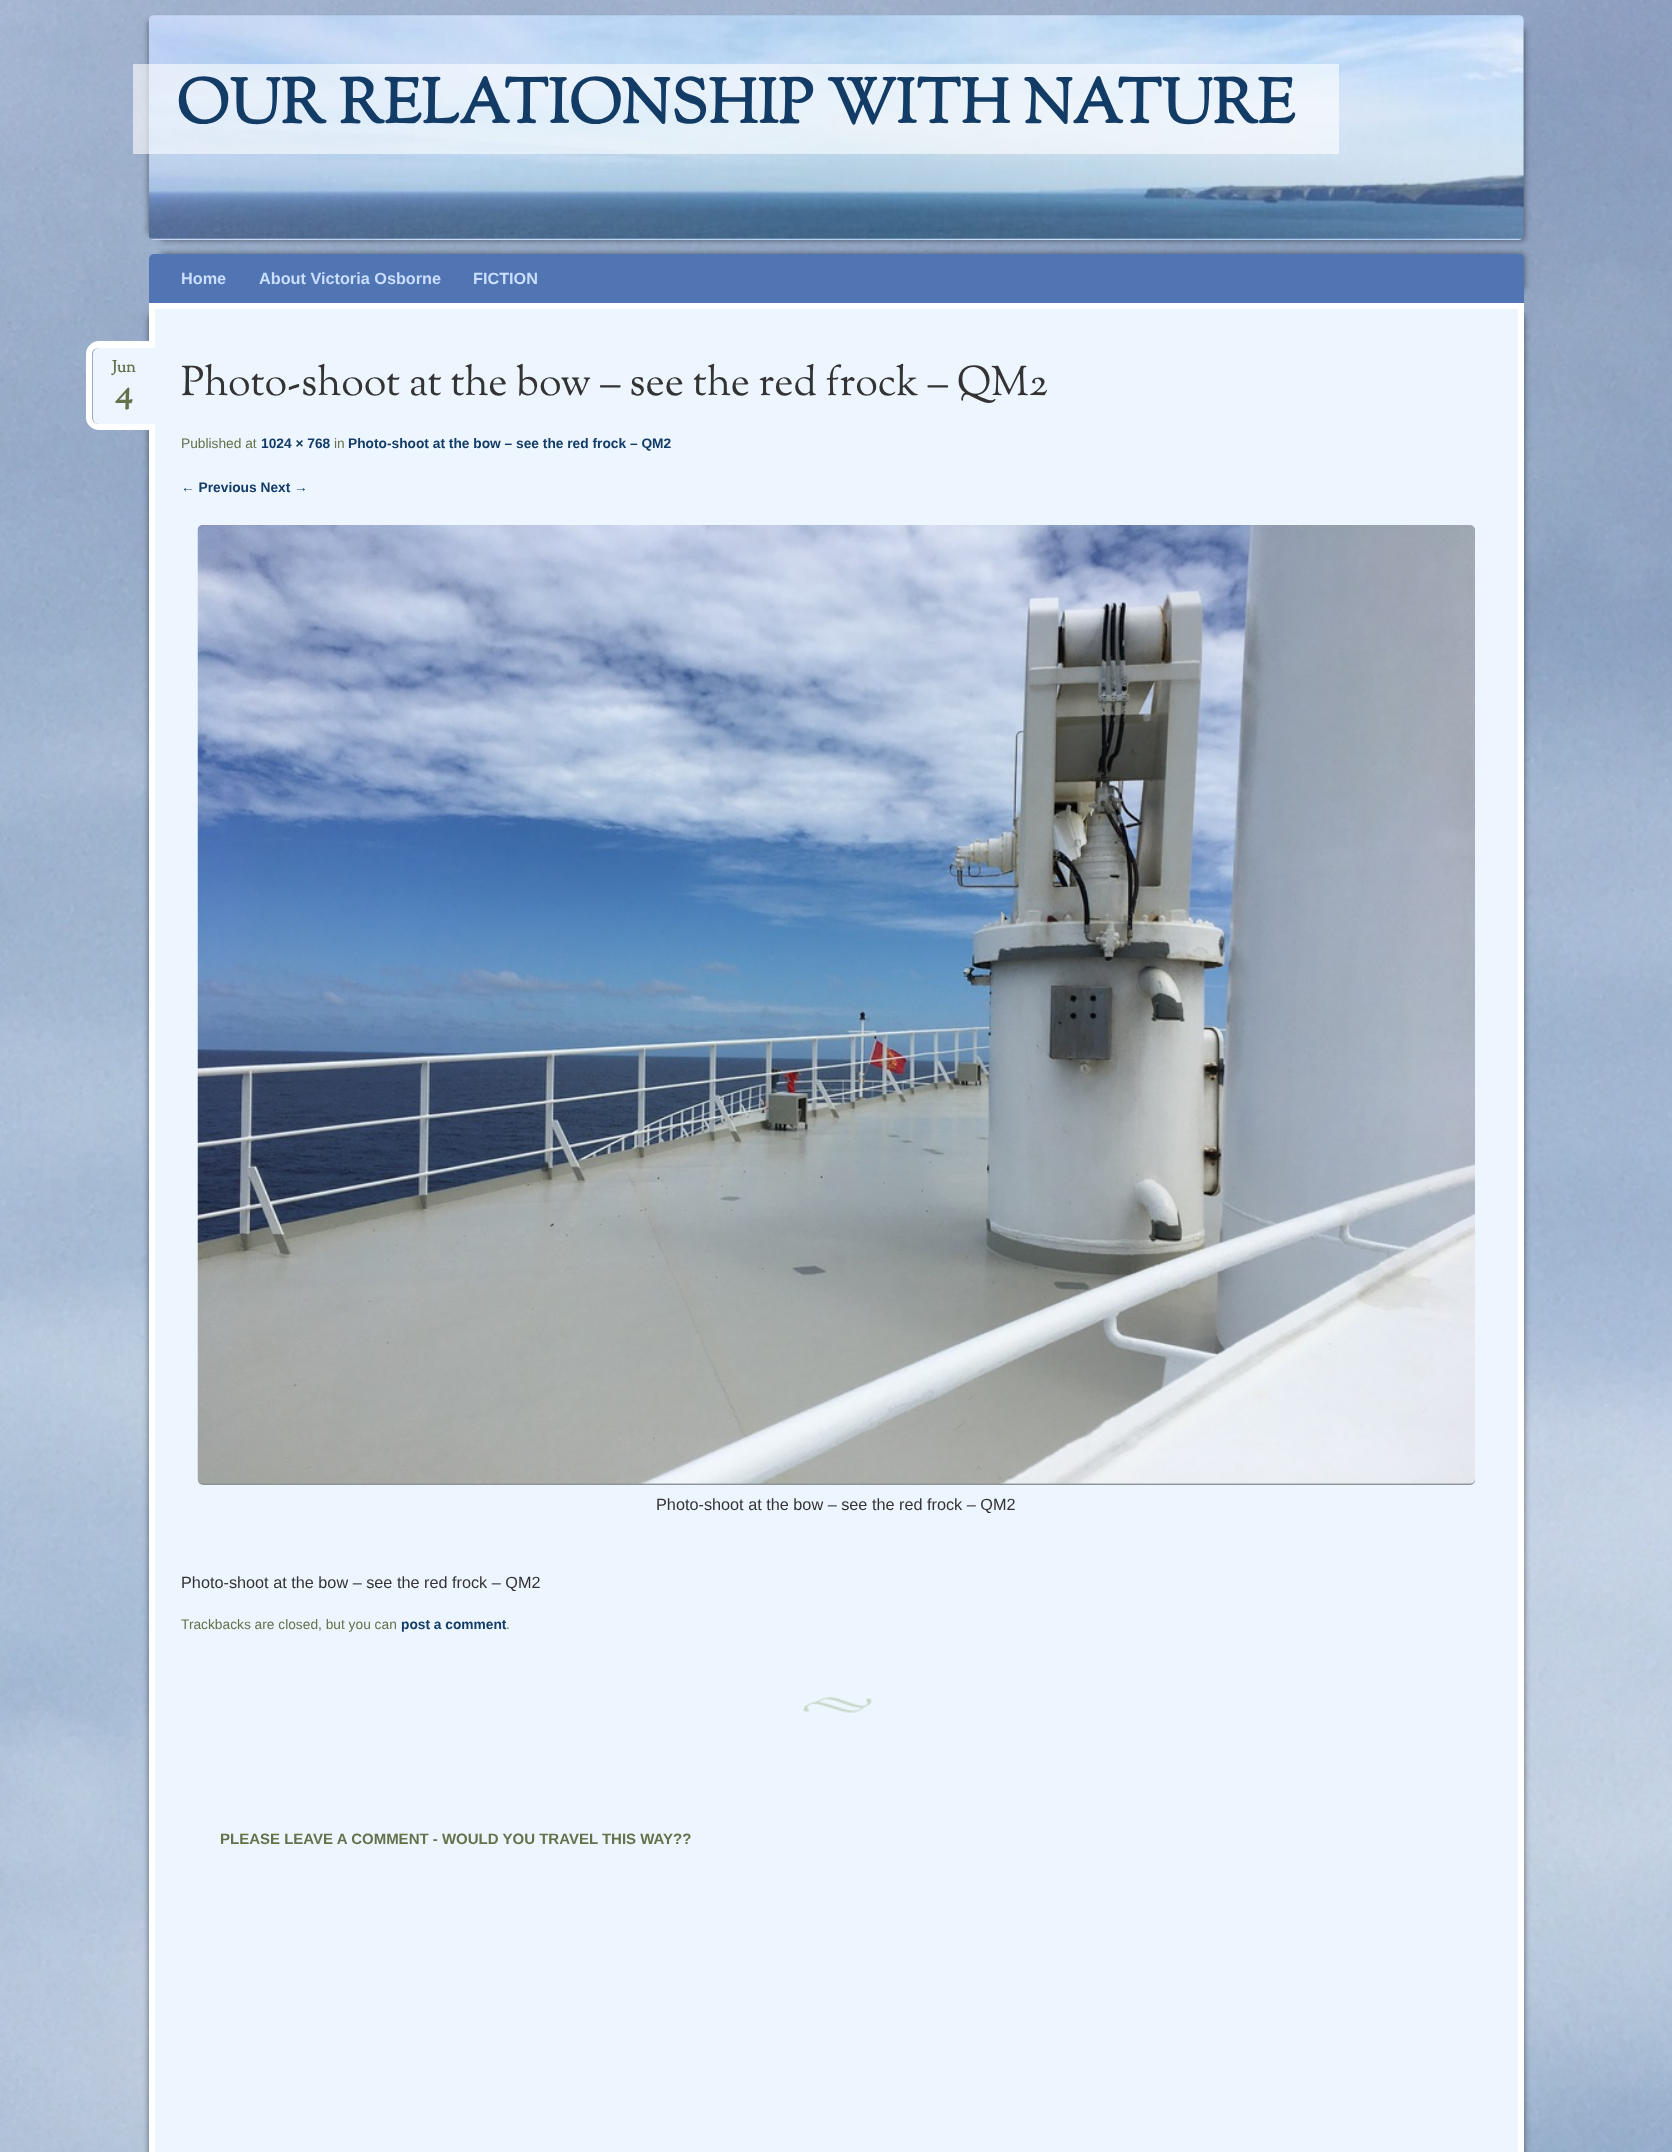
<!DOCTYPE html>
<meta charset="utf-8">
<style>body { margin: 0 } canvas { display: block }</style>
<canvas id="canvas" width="1672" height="2152"></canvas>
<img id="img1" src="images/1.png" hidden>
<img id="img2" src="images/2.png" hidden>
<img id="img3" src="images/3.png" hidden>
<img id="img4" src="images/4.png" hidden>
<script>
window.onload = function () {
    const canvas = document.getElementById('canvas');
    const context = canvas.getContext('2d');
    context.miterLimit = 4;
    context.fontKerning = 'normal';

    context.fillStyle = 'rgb(255, 255, 255)';
    context.fillRect(0, 0, 1672, 2152);
    context.drawImage(document.getElementById('img1'), 0, 0, 1672, 2152);
    context.fillStyle = 'rgba(0, 0, 0, 0.5)';
    context.filter = 'blur(3px)';
    context.beginPath();
    context.rect(149, 21, 1362, 213);
    context.fill();
    context.filter = 'none';
    context.filter = 'blur(3px)';
    context.beginPath();
    context.rect(161, 28, 1363, 212);
    context.fill();
    context.filter = 'none';
    context.drawImage(document.getElementById('img2'), 148, 15, 1376, 225);
    context.fillStyle = 'rgba(255, 255, 255, 0.6)';
    context.fillRect(133, 64, 1206, 90);
    context.fillStyle = 'rgba(0, 0, 0, 0.5)';
    context.filter = 'blur(3px)';
    context.beginPath();
    context.rect(161, 254, 1363, 36);
    context.fill();
    context.filter = 'none';
    context.fillStyle = 'rgb(81, 117, 179)';
    context.beginPath();
    context.roundRect(149, 254, 1375, 49, [5, 5, 0, 0]);
    context.fill();
    context.fillStyle = 'rgba(0, 0, 0, 0.5)';
    context.filter = 'blur(3px)';
    context.beginPath();
    context.rect(149, 315, 1362, 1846);
    context.fill();
    context.filter = 'none';
    context.filter = 'blur(3px)';
    context.beginPath();
    context.rect(161, 315, 1363, 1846);
    context.fill();
    context.filter = 'none';
    context.fillStyle = 'rgb(237, 246, 254)';
    context.beginPath();
    context.rect(152, 306, 1369, 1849);
    context.fill();
    context.strokeStyle = 'rgb(255, 255, 255)';
    context.lineWidth = 6;
    context.stroke();
    context.drawImage(document.getElementById('img3'), 803, 1697, 69, 16);
    context.beginPath();
    context.roundRect(93, 348, 62, 76, [6, 0, 0, 6]);
    context.fill();
    context.fillStyle = 'rgb(255, 255, 255)';
    context.beginPath();
    context.moveTo(99, 341);
    context.lineTo(155, 341);
    context.lineTo(155, 430);
    context.lineTo(99, 430);
    context.bezierCurveTo(92, 430, 86, 424, 86, 418);
    context.lineTo(86, 354);
    context.bezierCurveTo(86, 347, 92, 341, 99, 341);
    context.closePath();
    context.moveTo(99, 348);
    context.lineTo(155, 348);
    context.lineTo(155, 424);
    context.lineTo(99, 424);
    context.bezierCurveTo(95, 424, 92, 421, 92, 418);
    context.lineTo(92, 354);
    context.bezierCurveTo(92, 350, 95, 348, 99, 348);
    context.closePath();
    context.fill('evenodd');
    context.fillStyle = 'rgba(0, 0, 0, 0.4)';
    context.filter = 'blur(0.5px)';
    context.beginPath();
    context.roundRect(198, 526, 1277, 959, 5);
    context.fill();
    context.filter = 'none';
    context.drawImage(document.getElementById('img4'), 197, 525, 1278, 959);
    context.font = 'bold 62.5px Sorts Mill Goudy';
    context.fillStyle = 'rgb(18, 59, 102)';
    context.fillText('OUR RELATIONSHIP WITH NATURE', 176, 123);
    context.font = 'bold 16.25px Liberation Sans';
    context.fillStyle = 'rgb(202, 222, 255)';
    context.fillText('Home', 181, 284);
    context.fillText('About Victoria Osborne', 259, 284);
    context.fillText('FICTION', 473, 284);
    context.font = 'bold 16.25px Sorts Mill Goudy';
    context.fillStyle = 'rgb(99, 114, 75)';
    context.fillText('Jun', 112, 372);
    context.font = 'bold 35px Sorts Mill Goudy';
    context.fillText('4', 115, 403);
    context.font = '41.25px Sorts Mill Goudy';
    context.fillStyle = 'rgb(51, 51, 51)';
    context.fillText('Photo-shoot at the bow – see the red frock – QM2', 181, 395);
    context.font = '13.75px Liberation Sans';
    context.fillStyle = 'rgb(99, 114, 75)';
    context.fillText('Published at', 181, 448);
    context.font = 'bold 13.75px Liberation Sans';
    context.fillStyle = 'rgb(18, 59, 102)';
    context.fillText('1024 × 768', 261, 448);
    context.font = '13.75px Liberation Sans';
    context.fillStyle = 'rgb(99, 114, 75)';
    context.fillText('in', 334, 448);
    context.font = 'bold 13.75px Liberation Sans';
    context.fillStyle = 'rgb(18, 59, 102)';
    context.fillText('Photo-shoot at the bow – see the red frock – QM2', 348, 448);
    context.fillText('← Previous Next →', 181, 492);
    context.font = '16.25px Liberation Sans';
    context.fillStyle = 'rgb(51, 51, 51)';
    context.fillText('Photo-shoot at the bow – see the red frock – QM2', 656, 1510);
    context.fillText('Photo-shoot at the bow – see the red frock – QM2', 181, 1588);
    context.font = '13.75px Liberation Sans';
    context.fillStyle = 'rgb(99, 114, 75)';
    context.fillText('Trackbacks are closed, but you can', 181, 1629);
    context.font = 'bold 13.75px Liberation Sans';
    context.fillStyle = 'rgb(18, 59, 102)';
    context.fillText('post a comment', 401, 1629);
    context.font = '13.75px Liberation Sans';
    context.fillStyle = 'rgb(99, 114, 75)';
    context.fillText('.', 506, 1629);
    context.font = 'bold 15px Liberation Sans';
    context.fillText('PLEASE LEAVE A COMMENT - WOULD YOU TRAVEL THIS WAY??', 220, 1844);
};
</script>
